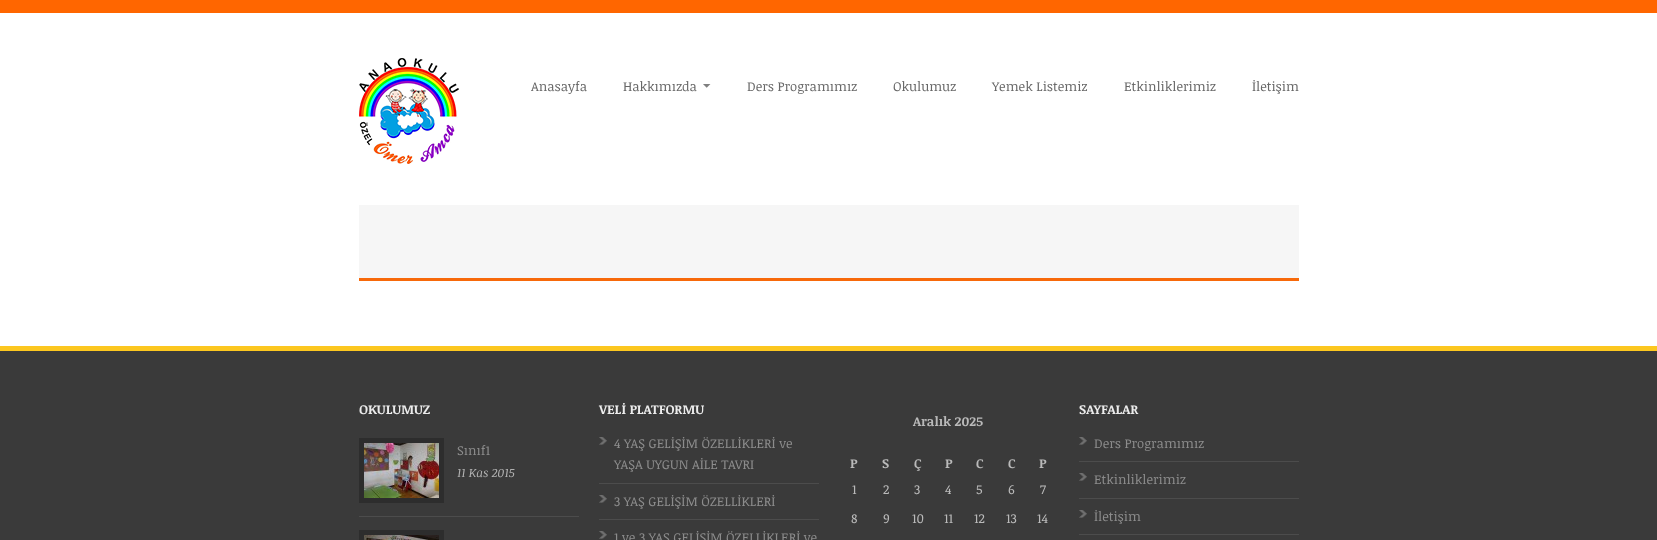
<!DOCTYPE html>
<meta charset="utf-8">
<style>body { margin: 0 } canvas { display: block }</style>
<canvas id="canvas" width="1657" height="540"></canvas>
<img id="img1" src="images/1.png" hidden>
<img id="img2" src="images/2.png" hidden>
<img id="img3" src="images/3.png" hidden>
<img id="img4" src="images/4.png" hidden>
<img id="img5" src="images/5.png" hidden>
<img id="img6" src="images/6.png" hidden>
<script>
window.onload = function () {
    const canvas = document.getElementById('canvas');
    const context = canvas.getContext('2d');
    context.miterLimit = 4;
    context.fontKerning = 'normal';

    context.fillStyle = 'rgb(255, 255, 255)';
    context.fillRect(0, 0, 1657, 540);
    context.fillStyle = 'rgb(255, 102, 0)';
    context.fillRect(0, 0, 1657, 13);
    context.drawImage(document.getElementById('img1'), 359, 58, 100, 106);
    context.drawImage(document.getElementById('img2'), 703, 84, 8, 4);
    context.fillStyle = 'rgb(246, 246, 246)';
    context.fillRect(359, 205, 940, 73);
    context.fillStyle = 'rgb(247, 105, 10)';
    context.fillRect(359, 278, 940, 3);
    context.fillStyle = 'rgb(252, 199, 31)';
    context.fillRect(0, 346, 1657, 5);
    context.fillStyle = 'rgb(58, 58, 58)';
    context.fillRect(0, 351, 1657, 189);
    context.fillStyle = 'rgb(76, 76, 76)';
    context.fillRect(359, 516, 220, 1);
    context.fillStyle = 'rgb(45, 45, 45)';
    context.fillRect(359, 438, 85, 65);
    context.drawImage(document.getElementById('img3'), 364, 443, 75, 55);
    context.fillRect(359, 530, 85, 10);
    context.drawImage(document.getElementById('img4'), 364, 535, 75, 5);
    context.drawImage(document.getElementById('img5'), 599, 437, 8, 8);
    context.fillStyle = 'rgb(76, 76, 76)';
    context.fillRect(599, 483, 220, 1);
    context.drawImage(document.getElementById('img5'), 599, 495, 8, 8);
    context.fillRect(599, 519, 220, 1);
    context.drawImage(document.getElementById('img5'), 599, 531, 8, 8);
    context.drawImage(document.getElementById('img6'), 1079, 437, 8, 8);
    context.fillRect(1079, 461, 220, 1);
    context.drawImage(document.getElementById('img6'), 1079, 473, 8, 8);
    context.fillRect(1079, 498, 220, 1);
    context.drawImage(document.getElementById('img6'), 1079, 510, 8, 8);
    context.fillRect(1079, 534, 220, 1);
    context.font = '13px Noticia Text';
    context.fillStyle = 'rgb(104, 104, 104)';
    context.fillText('Anasayfa', 531, 91);
    context.fillText('Hakkımızda', 623, 91);
    context.fillText('Ders Programımız', 747, 91);
    context.fillText('Okulumuz', 893, 91);
    context.fillText('Yemek Listemiz', 992, 91);
    context.fillText('Etkinliklerimiz', 1124, 91);
    context.fillText('İletişim', 1252, 91);
    context.font = 'bold 13px Noticia Text';
    context.fillStyle = 'rgb(236, 236, 236)';
    context.fillText('OKULUMUZ', 359, 414);
    context.font = '13px Noticia Text';
    context.fillStyle = 'rgb(140, 140, 140)';
    context.fillText('Sınıf1', 457, 455);
    context.font = 'italic 12px Noticia Text';
    context.fillStyle = 'rgb(177, 177, 177)';
    context.fillText('11 Kas 2015', 457, 477);
    context.font = 'bold 13px Noticia Text';
    context.fillStyle = 'rgb(236, 236, 236)';
    context.fillText('VELİ PLATFORMU', 599, 414);
    context.font = '13px Noticia Text';
    context.fillStyle = 'rgb(140, 140, 140)';
    context.fillText('4 YAŞ GELİŞİM ÖZELLİKLERİ ve', 614, 448);
    context.fillText('YAŞA UYGUN AİLE TAVRI', 614, 469);
    context.fillText('3 YAŞ GELİŞİM ÖZELLİKLERİ', 614, 506);
    context.fillText('1 ve 3 YAŞ GELİŞİM ÖZELLİKLERİ ve', 614, 542);
    context.font = 'bold 13px Noticia Text';
    context.fillStyle = 'rgb(186, 186, 186)';
    context.fillText('Aralık 2025', 913, 426);
    context.fillText('P', 850, 468);
    context.fillText('S', 882, 468);
    context.fillText('Ç', 914, 468);
    context.fillText('P', 945, 468);
    context.fillText('C', 976, 468);
    context.fillText('C', 1008, 468);
    context.fillText('P', 1039, 468);
    context.font = '13px Noticia Text';
    context.fillText('1', 852, 494);
    context.fillText('2', 883, 494);
    context.fillText('3', 914, 494);
    context.fillText('4', 945, 494);
    context.fillText('5', 976, 494);
    context.fillText('6', 1008, 494);
    context.fillText('7', 1040, 494);
    context.fillText('8', 851, 523);
    context.fillText('9', 883, 523);
    context.fillText('10', 912, 523);
    context.fillText('11', 944, 523);
    context.fillText('12', 974, 523);
    context.fillText('13', 1006, 523);
    context.fillText('14', 1037, 523);
    context.font = 'bold 13px Noticia Text';
    context.fillStyle = 'rgb(236, 236, 236)';
    context.fillText('SAYFALAR', 1079, 414);
    context.font = '13px Noticia Text';
    context.fillStyle = 'rgb(140, 140, 140)';
    context.fillText('Ders Programımız', 1094, 448);
    context.fillText('Etkinliklerimiz', 1094, 484);
    context.fillText('İletişim', 1094, 521);
};
</script>
